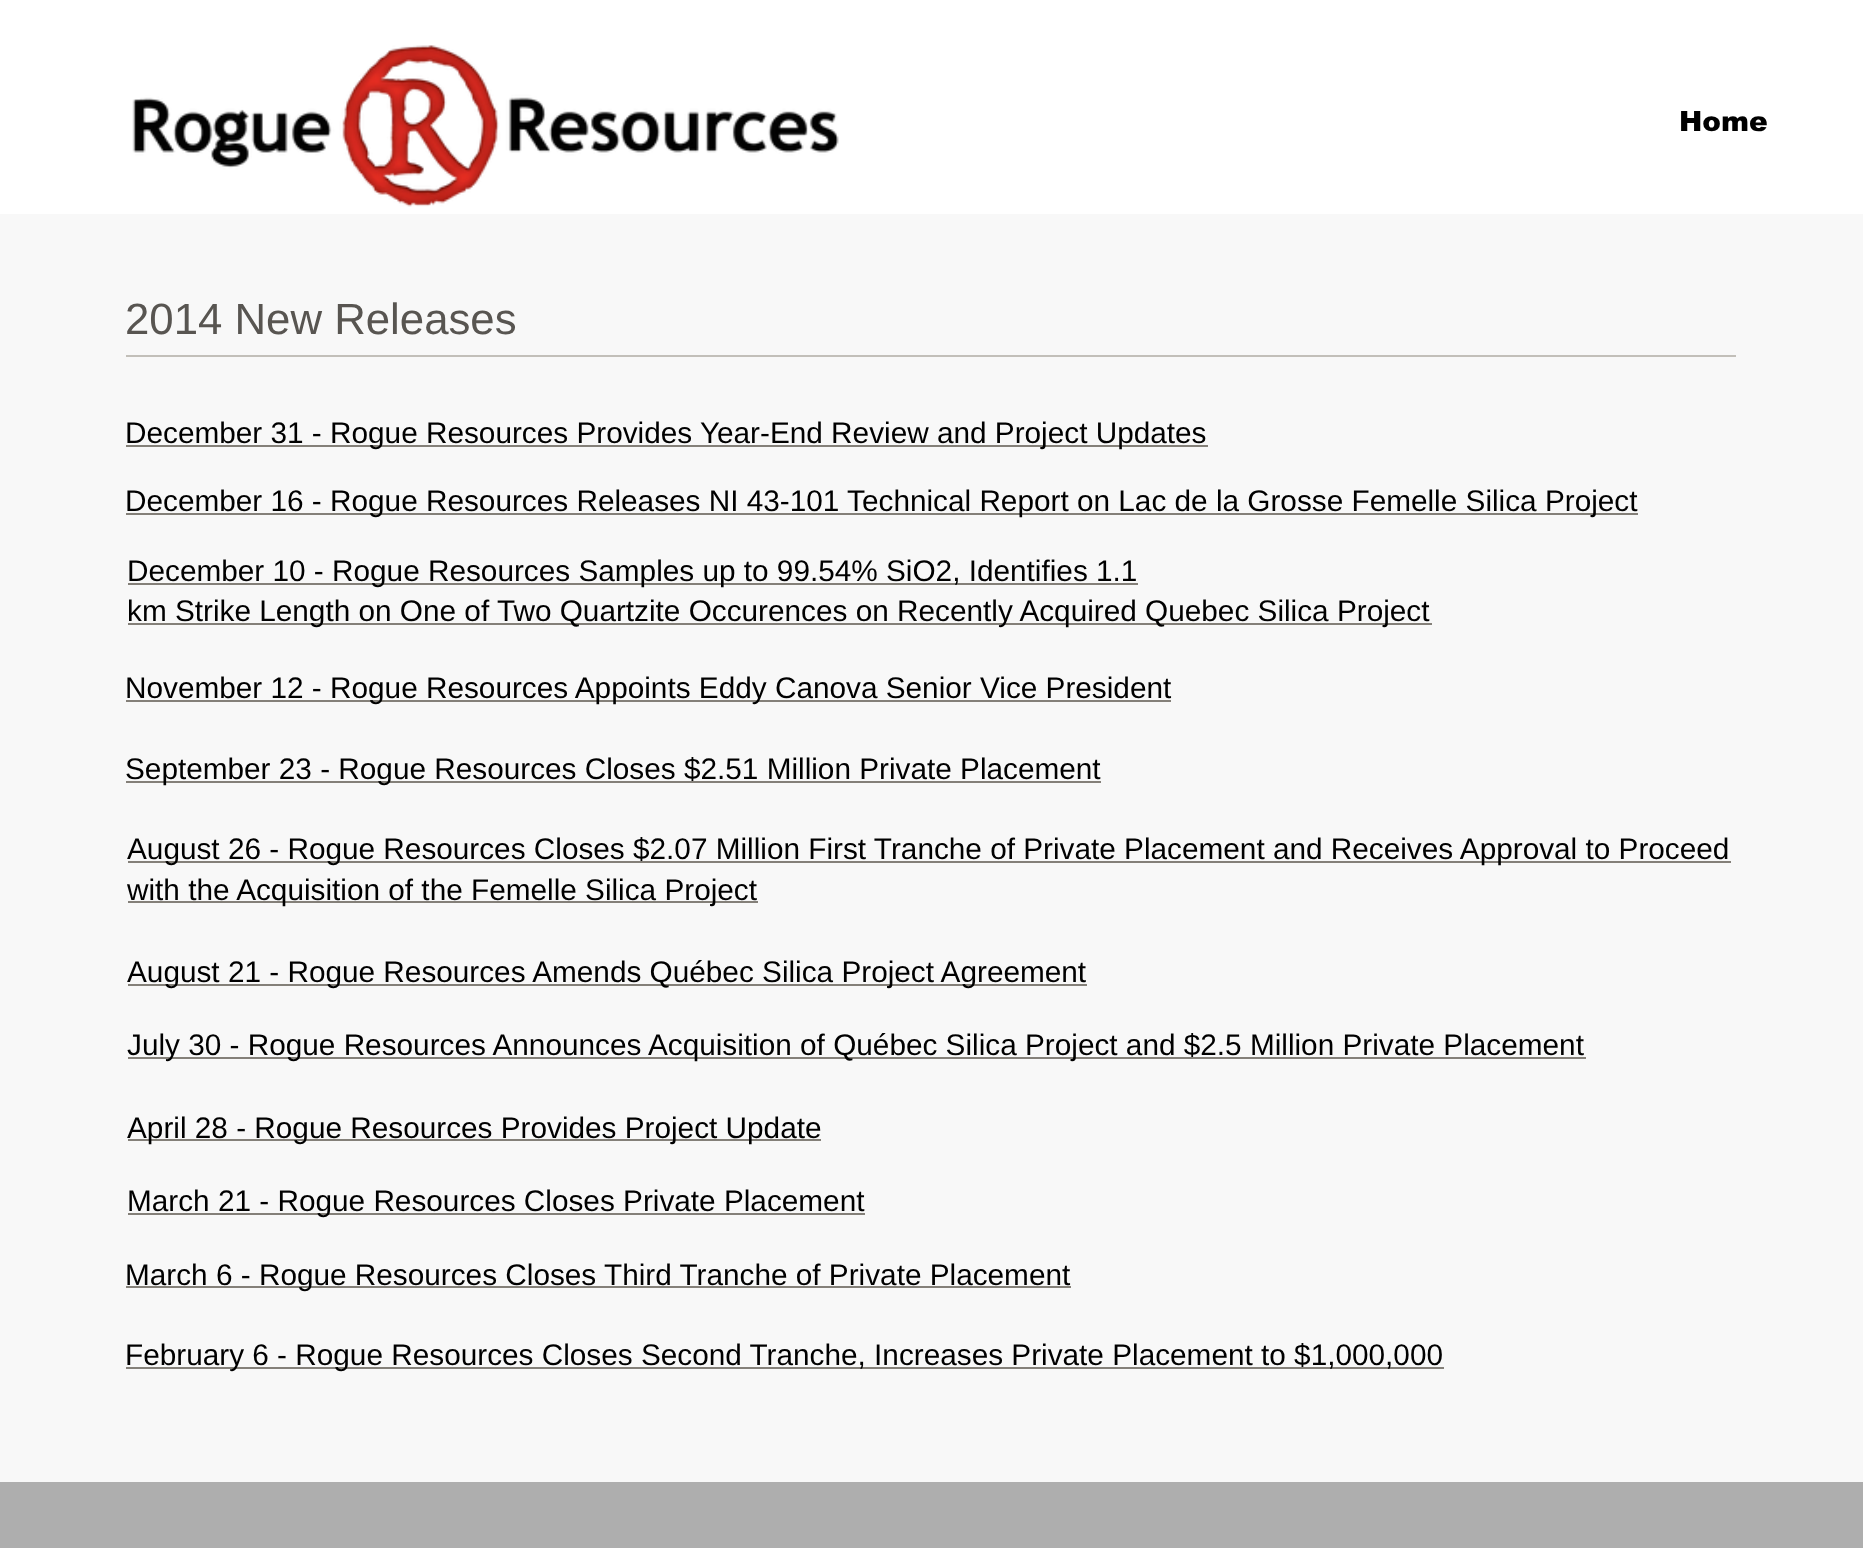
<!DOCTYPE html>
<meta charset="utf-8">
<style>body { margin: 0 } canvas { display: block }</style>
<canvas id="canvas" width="1863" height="1548"></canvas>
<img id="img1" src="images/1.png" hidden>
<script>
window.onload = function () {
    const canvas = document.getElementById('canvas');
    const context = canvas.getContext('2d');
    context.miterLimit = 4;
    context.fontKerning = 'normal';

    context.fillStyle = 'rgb(248, 248, 248)';
    context.fillRect(0, 0, 1863, 1548);
    context.fillStyle = 'rgb(255, 255, 255)';
    context.fillRect(0, 0, 1863, 214);
    context.drawImage(document.getElementById('img1'), 132, 45, 707, 162);
    context.fillStyle = 'rgb(194, 191, 185)';
    context.fillRect(126, 355, 1610, 2);
    context.fillStyle = 'rgb(132, 128, 121)';
    context.fillRect(126, 445, 1082, 2);
    context.fillRect(126, 513, 1512, 2);
    context.fillRect(128, 583, 1010, 2);
    context.fillRect(128, 623, 1304, 2);
    context.fillRect(126, 700, 1045, 2);
    context.fillRect(126, 781, 975, 2);
    context.fillRect(128, 861, 1603, 2);
    context.fillRect(128, 901, 630, 2);
    context.fillRect(128, 984, 959, 2);
    context.fillRect(128, 1057, 1458, 2);
    context.fillRect(128, 1139, 693, 2);
    context.fillRect(128, 1213, 737, 2);
    context.fillRect(126, 1286, 945, 2);
    context.fillRect(126, 1367, 1318, 2);
    context.fillStyle = 'rgb(174, 174, 174)';
    context.fillRect(0, 1482, 1863, 66);
    context.font = '900 28px arial';
    context.fillStyle = 'rgb(0, 0, 0)';
    context.fillText('Home', 1679, 131);
    context.font = '43.75px Liberation Sans';
    context.fillStyle = 'rgb(88, 85, 81)';
    context.fillText('2014 New Releases', 125, 334);
    context.font = '29.75px Liberation Sans';
    context.fillStyle = 'rgb(0, 0, 0)';
    context.fillText('December 31 - Rogue Resources Provides Year-End Review and Project Updates', 125, 443);
    context.fillText('December 16 - Rogue Resources Releases NI 43-101 Technical Report on Lac de la Grosse Femelle Silica Project', 125, 511);
    context.fillText('December 10 - Rogue Resources Samples up to 99.54% SiO2, Identifies 1.1', 127, 581);
    context.fillText('km Strike Length on One of Two Quartzite Occurences on Recently Acquired Quebec Silica Project', 127, 621);
    context.fillText('November 12 - Rogue Resources Appoints Eddy Canova Senior Vice President', 125, 698);
    context.fillText('September 23 - Rogue Resources Closes $2.51 Million Private Placement', 125, 779);
    context.fillText('August 26 - Rogue Resources Closes $2.07 Million First Tranche of Private Placement and Receives Approval to Proceed', 127, 859);
    context.fillText('with the Acquisition of the Femelle Silica Project', 127, 900);
    context.fillText('August 21 - Rogue Resources Amends Québec Silica Project Agreement', 127, 982);
    context.fillText('July 30 - Rogue Resources Announces Acquisition of Québec Silica Project and $2.5 Million Private Placement', 127, 1055);
    context.fillText('April 28 - Rogue Resources Provides Project Update', 127, 1138);
    context.fillText('March 21 - Rogue Resources Closes Private Placement', 127, 1211);
    context.fillText('March 6 - Rogue Resources Closes Third Tranche of Private Placement', 125, 1285);
    context.fillText('February 6 - Rogue Resources Closes Second Tranche, Increases Private Placement to $1,000,000', 125, 1365);
};
</script>
